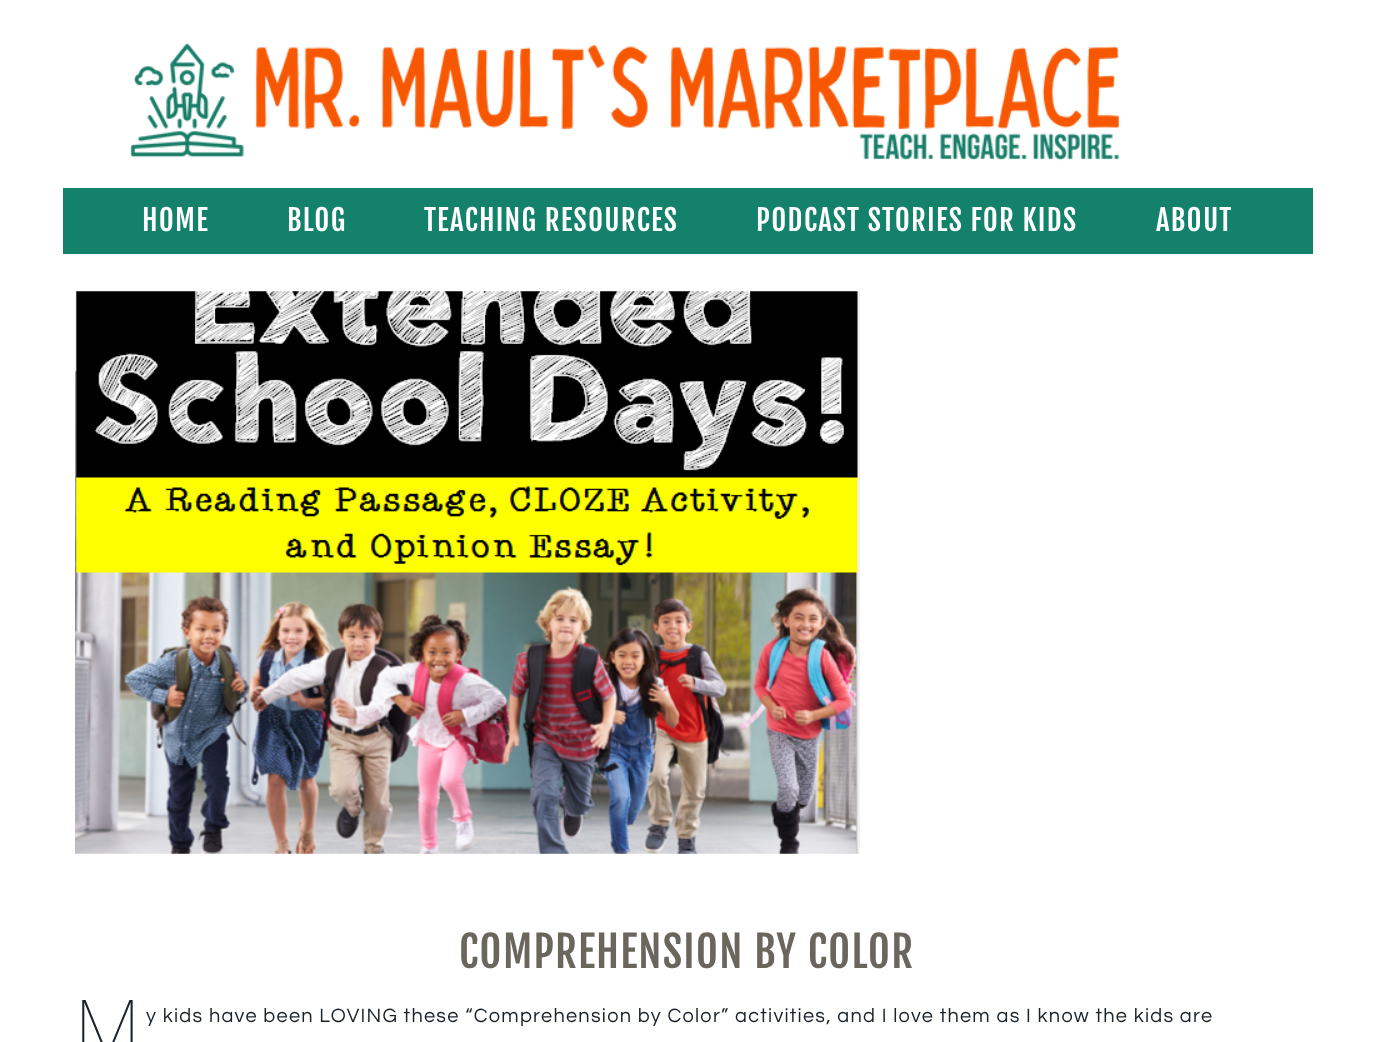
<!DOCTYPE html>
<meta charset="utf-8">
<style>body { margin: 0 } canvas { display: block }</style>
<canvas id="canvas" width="1373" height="1042"></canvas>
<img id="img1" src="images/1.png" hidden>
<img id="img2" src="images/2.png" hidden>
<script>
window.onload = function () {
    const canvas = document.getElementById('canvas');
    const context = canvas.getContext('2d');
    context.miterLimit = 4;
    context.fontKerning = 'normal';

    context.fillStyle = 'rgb(255, 255, 255)';
    context.fillRect(0, 0, 1373, 1042);
    context.drawImage(document.getElementById('img1'), 130, 43, 990, 118);
    context.fillStyle = 'rgb(20, 129, 106)';
    context.fillRect(63, 188, 1250, 66);
    context.drawImage(document.getElementById('img2'), 75, 291, 785, 563);
    context.letterSpacing = '1.25px';
    context.font = '28.75px Fjalla One';
    context.fillStyle = 'rgb(255, 255, 255)';
    context.fillText('HOME', 142, 231);
    context.fillText('BLOG', 287, 231);
    context.fillText('TEACHING RESOURCES', 424, 231);
    context.fillText('PODCAST STORIES FOR KIDS', 756, 231);
    context.fillText('ABOUT', 1156, 231);
    context.font = '42.5px Fjalla One';
    context.fillStyle = 'rgb(106, 101, 93)';
    context.fillText('COMPREHENSION BY COLOR', 459, 968);
    context.font = '100 80px Noto Sans';
    context.fillStyle = 'rgb(25, 33, 42)';
    context.fillText('M', 74, 1057);
    context.font = '20px Questrial';
    context.fillText('y kids have been LOVING these “Comprehension by Color” activities, and I love them as I know the kids are', 146, 1022);
};
</script>
